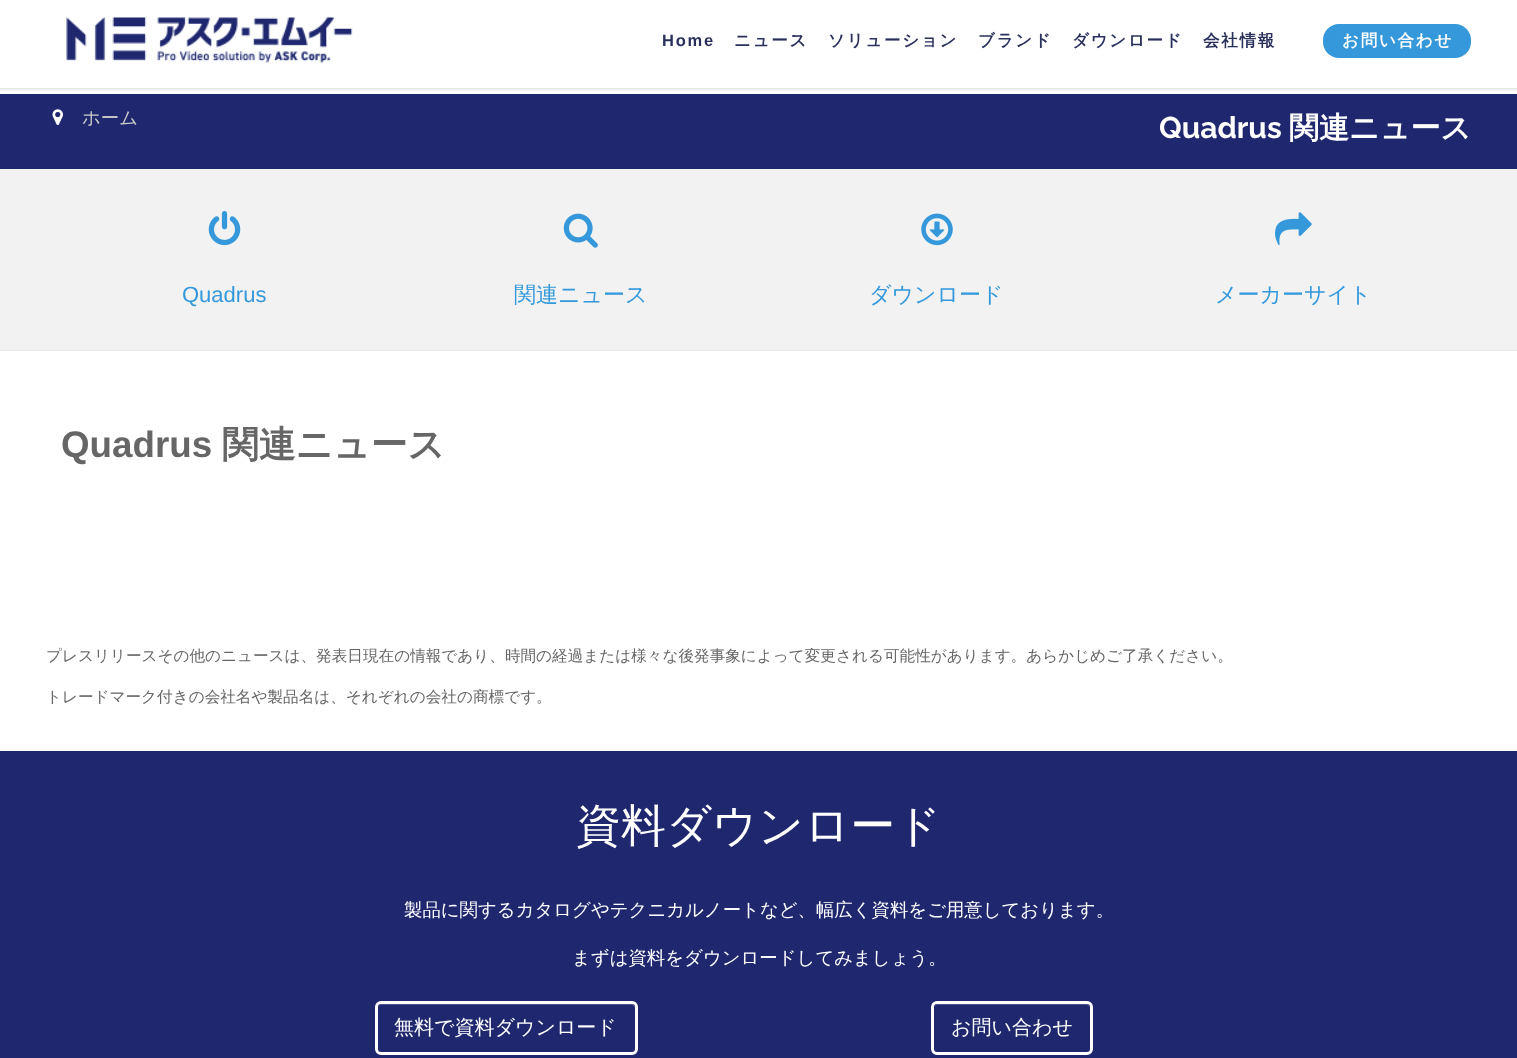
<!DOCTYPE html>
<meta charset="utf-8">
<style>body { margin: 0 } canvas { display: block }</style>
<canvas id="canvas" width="1517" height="1058"></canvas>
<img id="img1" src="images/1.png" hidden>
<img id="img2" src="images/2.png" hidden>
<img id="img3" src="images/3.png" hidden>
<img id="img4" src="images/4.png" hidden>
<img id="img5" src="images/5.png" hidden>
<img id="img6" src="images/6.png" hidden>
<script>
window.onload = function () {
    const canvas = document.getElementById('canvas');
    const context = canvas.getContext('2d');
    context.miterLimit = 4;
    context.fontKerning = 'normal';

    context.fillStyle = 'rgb(255, 255, 255)';
    context.fillRect(0, 0, 1517, 1058);
    context.fillStyle = 'rgba(10, 10, 10, 0.1)';
    context.filter = 'blur(1px)';
    context.beginPath();
    context.rect(-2, -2, 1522, 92);
    context.fill();
    context.filter = 'none';
    context.fillStyle = 'rgb(255, 255, 255)';
    context.fillRect(0, 0, 1517, 88);
    context.drawImage(document.getElementById('img1'), 66, 17, 287, 46);
    context.fillStyle = 'rgb(52, 152, 219)';
    context.beginPath();
    context.roundRect(1323, 24, 148, 34, 16);
    context.fill();
    context.fillStyle = 'rgb(31, 40, 111)';
    context.fillRect(0, 94, 1517, 75);
    context.drawImage(document.getElementById('img2'), 52, 109, 11, 16);
    context.fillStyle = 'rgb(242, 242, 242)';
    context.fillRect(0, 169, 1517, 181);
    context.fillStyle = 'rgb(235, 235, 235)';
    context.fillRect(0, 350, 1517, 1);
    context.drawImage(document.getElementById('img3'), 208, 211, 33, 35);
    context.drawImage(document.getElementById('img4'), 563, 213, 35, 35);
    context.drawImage(document.getElementById('img5'), 921, 213, 32, 33);
    context.drawImage(document.getElementById('img6'), 1275, 212, 37, 34);
    context.fillStyle = 'rgb(31, 40, 111)';
    context.fillRect(0, 751, 1517, 307);
    context.fillStyle = 'rgb(76, 83, 140)';
    context.beginPath();
    context.moveTo(381, 1005);
    context.lineTo(631, 1005);
    context.bezierCurveTo(633, 1005, 635, 1007, 635, 1009);
    context.lineTo(635, 1008);
    context.bezierCurveTo(635, 1006, 633, 1004, 631, 1004);
    context.lineTo(382, 1004);
    context.bezierCurveTo(380, 1004, 378, 1006, 378, 1008);
    context.lineTo(378, 1009);
    context.bezierCurveTo(378, 1007, 379, 1005, 381, 1005);
    context.closePath();
    context.fill();
    context.beginPath();
    context.roundRect(376.5, 1002.5, 260, 51, 4.5);
    context.strokeStyle = 'rgb(255, 255, 255)';
    context.lineWidth = 3;
    context.stroke();
    context.beginPath();
    context.moveTo(938, 1005);
    context.lineTo(1086, 1005);
    context.bezierCurveTo(1088, 1005, 1090, 1007, 1090, 1009);
    context.bezierCurveTo(1090, 1007, 1089, 1005, 1087, 1004);
    context.lineTo(937, 1004);
    context.bezierCurveTo(935, 1005, 934, 1007, 934, 1009);
    context.bezierCurveTo(934, 1007, 935, 1005, 938, 1005);
    context.closePath();
    context.fill();
    context.beginPath();
    context.roundRect(932.5, 1002.5, 159, 51, 4.5);
    context.stroke();
    context.letterSpacing = '1.75px';
    context.font = 'bold 16.5px Liberation Sans';
    context.fillStyle = 'rgb(42, 48, 92)';
    context.fillText('Home', 662, 46);
    context.font = 'bold 16.5px WenQuanYi Zen Hei';
    context.fillText('ニュース', 734, 46);
    context.fillText('ソリューション', 828, 46);
    context.fillText('ブランド', 978, 46);
    context.fillText('ダウンロード', 1072, 46);
    context.fillText('会社情報', 1203, 46);
    context.fillStyle = 'rgb(255, 255, 255)';
    context.fillText('お問い合わせ', 1342, 46);
    context.letterSpacing = '0px';
    context.font = '500 18.4px WenQuanYi Zen Hei';
    context.fillStyle = 'rgb(201, 202, 202)';
    context.fillText('ホーム', 82, 124);
    context.font = 'bold 30px Raleway';
    context.fillStyle = 'rgb(255, 255, 255)';
    context.fillText('Quadrus', 1159, 138);
    context.font = 'bold 30px WenQuanYi Zen Hei';
    context.fillText('関連ニュース', 1289, 138);
    context.font = '22px Liberation Sans';
    context.fillStyle = 'rgb(52, 152, 219)';
    context.fillText('Quadrus', 182, 302);
    context.font = '500 22px WenQuanYi Zen Hei';
    context.fillText('関連ニュース', 514, 302);
    context.fillText('ダウンロード', 869, 302);
    context.fillText('メーカーサイト', 1215, 302);
    context.font = 'bold 36.75px Liberation Sans';
    context.fillStyle = 'rgb(102, 102, 102)';
    context.fillText('Quadrus', 61, 457);
    context.font = 'bold 36.75px WenQuanYi Zen Hei';
    context.fillText('関連ニュース', 222, 457);
    context.font = '500 15.62px WenQuanYi Zen Hei';
    context.fillText('プレスリリースその他のニュースは、発表日現在の情報であり、時間の経過または様々な後発事象によって変更される可能性があります。あらかじめご了承ください。', 46, 661);
    context.fillText('トレードマーク付きの会社名や製品名は、それぞれの会社の商標です。', 46, 702);
    context.font = '500 45px WenQuanYi Zen Hei';
    context.fillStyle = 'rgb(255, 255, 255)';
    context.fillText('資料ダウンロード', 576, 841);
    context.font = '500 18.4px WenQuanYi Zen Hei';
    context.fillText('製品に関するカタログやテクニカルノートなど、幅広く資料をご用意しております。', 404, 916);
    context.fillText('まずは資料をダウンロードしてみましょう。', 572, 964);
    context.font = '500 20px WenQuanYi Zen Hei';
    context.fillText('無料で資料ダウンロード', 394, 1034);
    context.fillText('お問い合わせ', 951, 1034);
};
</script>
